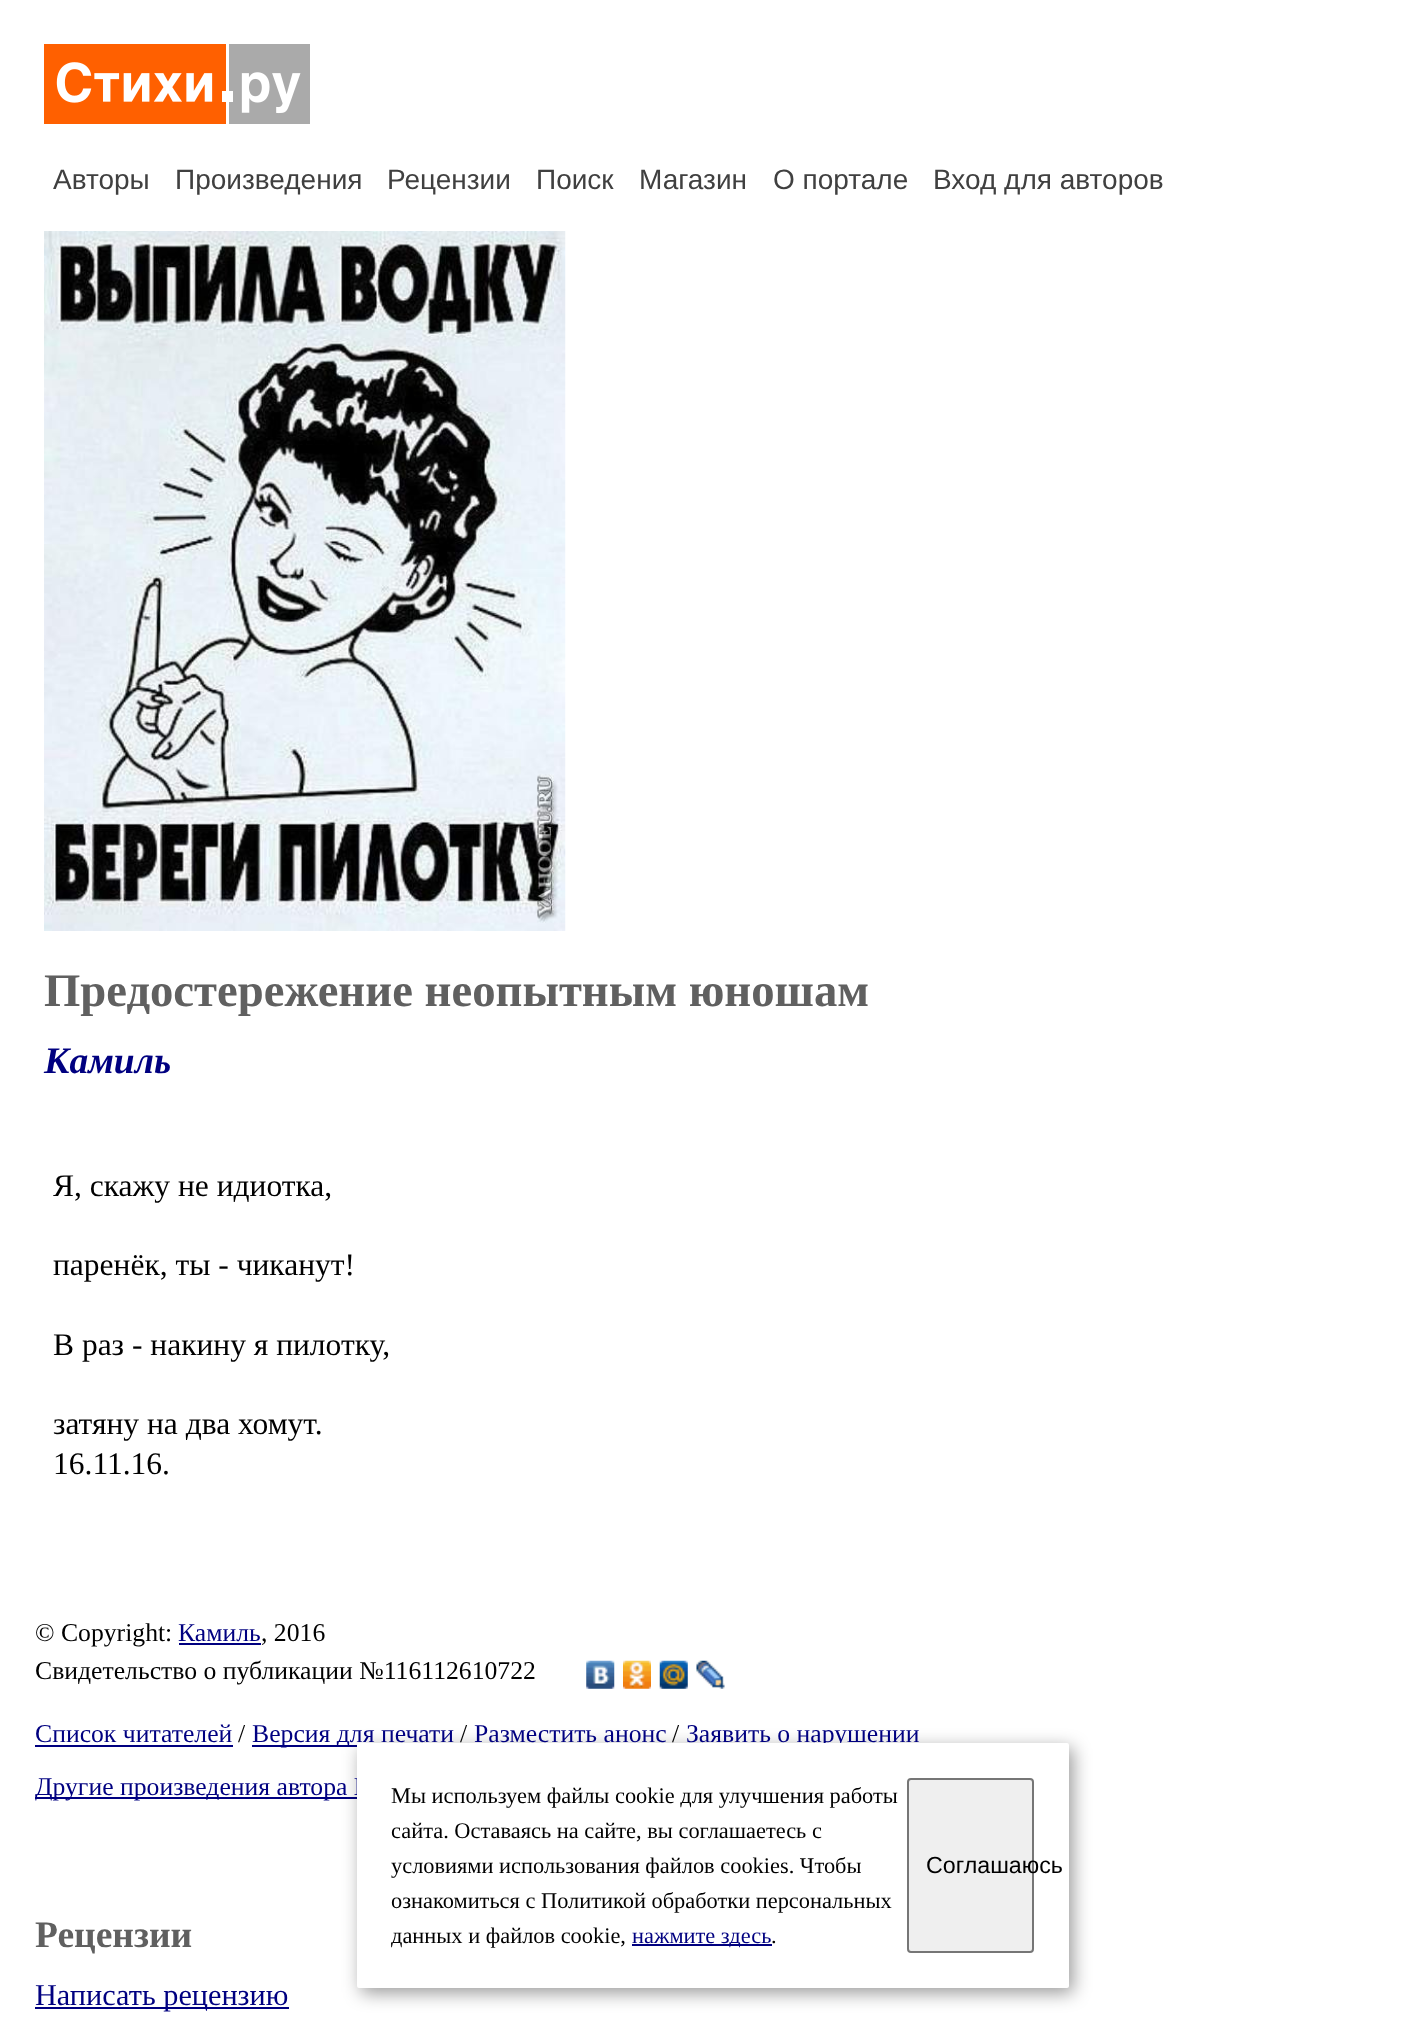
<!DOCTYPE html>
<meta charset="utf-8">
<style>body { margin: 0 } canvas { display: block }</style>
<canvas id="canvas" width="1423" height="2039"></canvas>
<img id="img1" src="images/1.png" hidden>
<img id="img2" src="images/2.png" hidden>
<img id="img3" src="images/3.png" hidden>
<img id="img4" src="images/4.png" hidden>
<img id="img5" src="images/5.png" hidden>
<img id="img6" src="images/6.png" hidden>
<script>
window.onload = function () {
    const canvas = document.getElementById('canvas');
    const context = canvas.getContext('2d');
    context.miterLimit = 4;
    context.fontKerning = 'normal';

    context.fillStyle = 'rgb(255, 255, 255)';
    context.fillRect(0, 0, 1423, 2039);
    context.drawImage(document.getElementById('img1'), 44, 44, 266, 80);
    context.drawImage(document.getElementById('img2'), 44, 231, 522, 700);
    context.fillStyle = 'rgb(0, 0, 128)';
    context.fillRect(179, 1643, 82, 2);
    context.drawImage(document.getElementById('img3'), 586, 1660, 29, 29);
    context.drawImage(document.getElementById('img4'), 623, 1660, 28, 29);
    context.drawImage(document.getElementById('img5'), 659, 1660, 29, 29);
    context.drawImage(document.getElementById('img6'), 696, 1660, 29, 29);
    context.fillRect(35, 1745, 198, 2);
    context.fillRect(252, 1745, 105, 2);
    context.fillRect(35, 1797, 322, 2);
    context.fillStyle = 'rgba(0, 0, 0, 0.4)';
    context.filter = 'blur(9px)';
    context.beginPath();
    context.roundRect(361, 1748, 712, 245, 2);
    context.fill();
    context.filter = 'none';
    context.fillStyle = 'rgb(0, 0, 128)';
    context.fillRect(35, 2007, 254, 2);
    context.font = '28px Liberation Sans';
    context.fillStyle = 'rgb(64, 64, 64)';
    context.fillText('Авторы', 53, 189);
    context.fillText('Произведения', 175, 189);
    context.fillText('Рецензии', 387, 189);
    context.fillText('Поиск', 536, 189);
    context.fillText('Магазин', 639, 189);
    context.fillText('О портале', 773, 189);
    context.fillText('Вход для авторов', 933, 189);
    context.font = 'bold 46.7px Liberation Serif';
    context.fillStyle = 'rgb(96, 96, 96)';
    context.fillText('Предостережение неопытным юношам', 44, 1006);
    context.font = 'italic bold 37.5px Liberation Serif';
    context.fillStyle = 'rgb(0, 0, 128)';
    context.fillText('Камиль', 44, 1073);
    context.font = '31.5px Liberation Serif';
    context.fillStyle = 'rgb(0, 0, 0)';
    context.fillText('Я, скажу не идиотка,', 53, 1196);
    context.fillText('паренёк, ты - чиканут!', 53, 1275);
    context.fillText('В раз - накину я пилотку,', 53, 1355);
    context.fillText('затяну на два хомут.', 53, 1434);
    context.fillText('16.11.16.', 53, 1474);
    context.font = '25.7px Liberation Serif';
    context.fillText('© Copyright:', 35, 1641);
    context.fillStyle = 'rgb(0, 0, 128)';
    context.fillText('Камиль', 178, 1641);
    context.fillStyle = 'rgb(0, 0, 0)';
    context.fillText(', 2016', 261, 1641);
    context.fillText('Свидетельство о публикации №116112610722', 35, 1679);
    context.fillStyle = 'rgb(0, 0, 128)';
    context.fillText('Список читателей', 35, 1742);
    context.fillStyle = 'rgb(0, 0, 0)';
    context.fillText('/', 238, 1742);
    context.fillStyle = 'rgb(0, 0, 128)';
    context.fillText('Версия для печати', 252, 1742);
    context.fillStyle = 'rgb(0, 0, 0)';
    context.fillText('/', 460, 1742);
    context.fillStyle = 'rgb(0, 0, 128)';
    context.fillText('Разместить анонс', 474, 1742);
    context.fillStyle = 'rgb(0, 0, 0)';
    context.fillText('/', 672, 1742);
    context.fillStyle = 'rgb(0, 0, 128)';
    context.fillText('Заявить о нарушении', 686, 1742);
    context.fillText('Другие произведения автора К', 35, 1795);
    context.fillStyle = 'rgb(255, 255, 255)';
    context.beginPath();
    context.roundRect(357, 1743, 712, 245, 2);
    context.fill();
    context.font = '22.4px Liberation Serif';
    context.fillStyle = 'rgb(0, 0, 0)';
    context.fillText('Мы используем файлы cookie для улучшения работы', 391, 1803);
    context.fillText('сайта. Оставаясь на сайте, вы соглашаетесь с', 391, 1838);
    context.fillText('условиями использования файлов cookies. Чтобы', 391, 1873);
    context.fillText('ознакомиться с Политикой обработки персональных', 391, 1908);
    context.fillText('данных и файлов cookie,', 391, 1943);
    context.fillStyle = 'rgb(0, 0, 128)';
    context.fillRect(632, 1944, 140, 2);
    context.fillText('нажмите здесь', 632, 1943);
    context.fillStyle = 'rgb(0, 0, 0)';
    context.fillText('.', 771, 1943);
    context.fillStyle = 'rgb(239, 239, 239)';
    context.beginPath();
    context.roundRect(908, 1779, 125, 173, 3);
    context.fill();
    context.strokeStyle = 'rgb(118, 118, 118)';
    context.lineWidth = 2;
    context.stroke();
    context.font = '23.25px Liberation Sans';
    context.fillStyle = 'rgb(0, 0, 0)';
    context.fillText('Соглашаюсь', 926, 1873);
    context.font = 'bold 37.5px Liberation Serif';
    context.fillStyle = 'rgb(96, 96, 96)';
    context.fillText('Рецензии', 35, 1947);
    context.font = '30.25px Liberation Serif';
    context.fillStyle = 'rgb(0, 0, 128)';
    context.fillText('Написать рецензию', 35, 2005);
};
</script>
